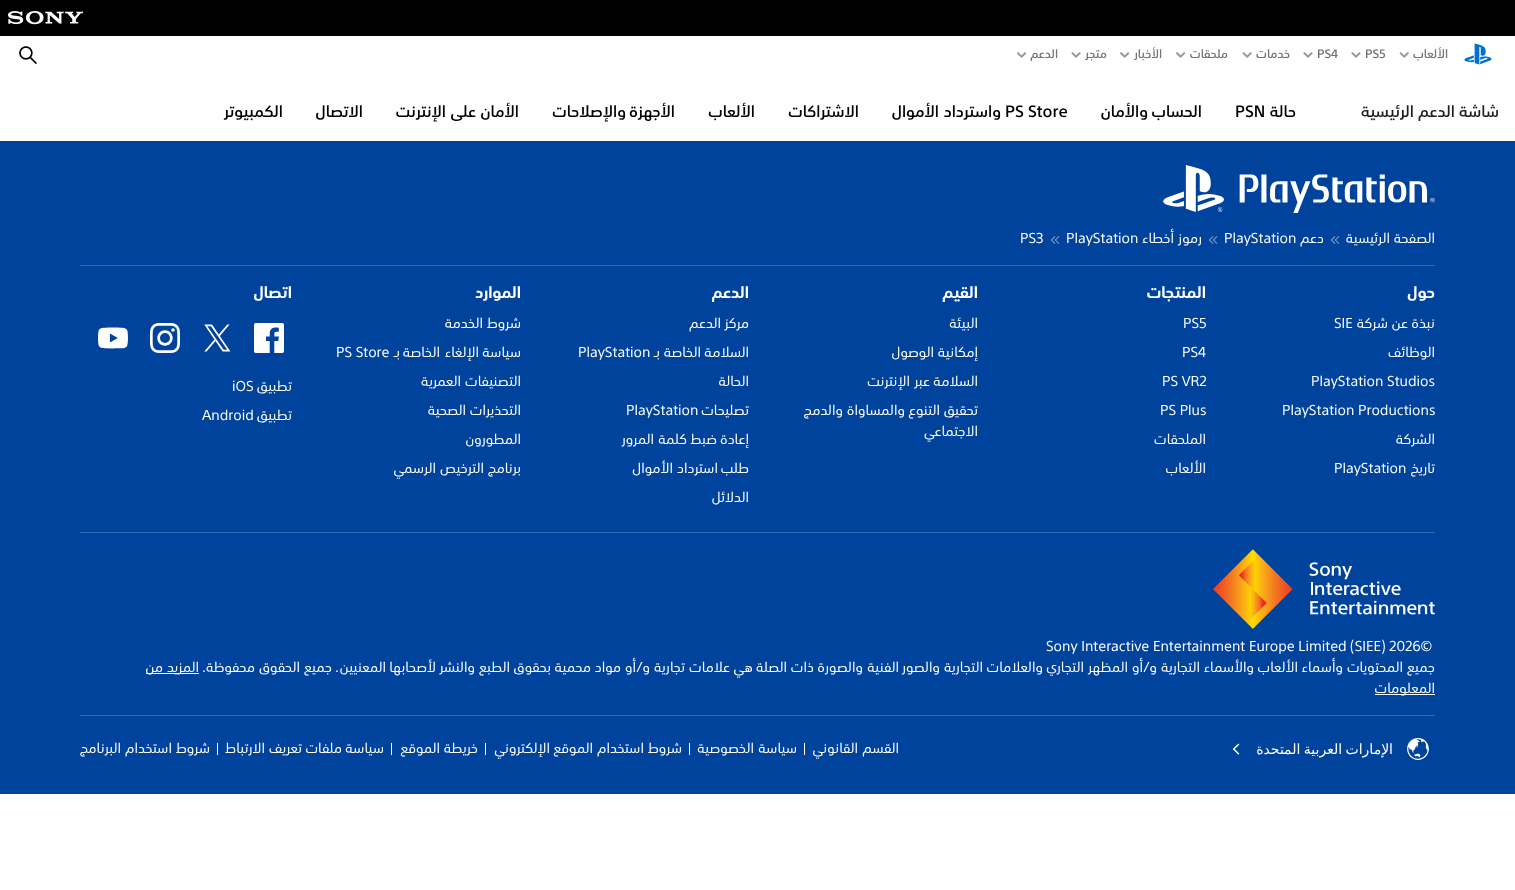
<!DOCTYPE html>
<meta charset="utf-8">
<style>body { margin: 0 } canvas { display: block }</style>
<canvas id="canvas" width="1515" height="890"></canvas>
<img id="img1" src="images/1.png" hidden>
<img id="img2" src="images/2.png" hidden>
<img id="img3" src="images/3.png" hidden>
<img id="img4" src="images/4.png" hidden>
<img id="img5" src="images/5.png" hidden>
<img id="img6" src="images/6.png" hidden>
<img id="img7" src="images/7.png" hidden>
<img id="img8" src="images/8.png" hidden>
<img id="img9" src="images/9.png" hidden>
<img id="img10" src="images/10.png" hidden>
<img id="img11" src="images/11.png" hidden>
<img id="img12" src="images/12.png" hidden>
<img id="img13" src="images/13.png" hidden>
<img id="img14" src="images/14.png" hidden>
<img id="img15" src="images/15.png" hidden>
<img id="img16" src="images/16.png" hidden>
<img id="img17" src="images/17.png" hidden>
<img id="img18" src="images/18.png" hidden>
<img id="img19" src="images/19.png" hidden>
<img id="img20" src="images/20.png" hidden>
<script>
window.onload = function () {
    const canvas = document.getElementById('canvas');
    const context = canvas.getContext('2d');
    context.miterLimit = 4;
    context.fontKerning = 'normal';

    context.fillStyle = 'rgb(255, 255, 255)';
    context.fillRect(0, 0, 1515, 890);
    context.fillStyle = 'rgb(0, 0, 0)';
    context.fillRect(0, 0, 1515, 36);
    context.drawImage(document.getElementById('img1'), 8, 11, 75, 14);
    context.drawImage(document.getElementById('img2'), 1464, 43, 28, 22);
    context.drawImage(document.getElementById('img3'), 1399, 52, 10, 6);
    context.drawImage(document.getElementById('img4'), 1351, 52, 10, 6);
    context.drawImage(document.getElementById('img5'), 1303, 52, 10, 6);
    context.drawImage(document.getElementById('img6'), 1242, 52, 10, 6);
    context.drawImage(document.getElementById('img7'), 1176, 52, 10, 6);
    context.drawImage(document.getElementById('img8'), 1120, 52, 10, 6);
    context.drawImage(document.getElementById('img9'), 1071, 52, 10, 6);
    context.drawImage(document.getElementById('img10'), 1017, 52, 10, 6);
    context.drawImage(document.getElementById('img11'), 19, 46, 18, 18);
    context.fillStyle = 'rgb(0, 67, 156)';
    context.fillRect(0, 141, 1515, 653);
    context.drawImage(document.getElementById('img12'), 1163, 165, 272, 48);
    context.drawImage(document.getElementById('img13'), 1330, 236, 10, 8);
    context.drawImage(document.getElementById('img13'), 1208, 236, 10, 8);
    context.drawImage(document.getElementById('img13'), 1050, 236, 10, 8);
    context.fillStyle = 'rgb(51, 105, 176)';
    context.fillRect(80, 265, 1355, 1);
    context.drawImage(document.getElementById('img14'), 254, 323, 30, 30);
    context.drawImage(document.getElementById('img15'), 204, 324, 27, 28);
    context.drawImage(document.getElementById('img16'), 150, 323, 30, 30);
    context.drawImage(document.getElementById('img17'), 98, 327, 30, 22);
    context.fillRect(80, 532, 1355, 1);
    context.drawImage(document.getElementById('img18'), 1213, 549, 222, 80);
    context.fillStyle = 'rgb(255, 255, 255)';
    context.fillRect(146, 673, 53, 1);
    context.fillRect(1375, 694, 60, 1);
    context.fillStyle = 'rgb(51, 105, 176)';
    context.fillRect(80, 715, 1355, 1);
    context.drawImage(document.getElementById('img19'), 1407, 738, 22, 22);
    context.drawImage(document.getElementById('img20'), 1232, 743, 8, 12);
    context.fillStyle = 'rgb(255, 255, 255)';
    context.fillRect(804, 743, 1, 12);
    context.fillRect(689, 743, 1, 12);
    context.fillRect(485, 743, 1, 12);
    context.fillRect(391, 743, 1, 12);
    context.fillRect(217, 743, 1, 12);
    context.direction = 'rtl';
    context.font = '500 12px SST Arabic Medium';
    context.fillStyle = 'rgb(117, 117, 117)';
    context.fillText('الألعاب', 1448, 58);
    context.direction = 'ltr';
    context.font = '500 12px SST';
    context.fillText('PS5', 1365, 58);
    context.fillText('PS4', 1317, 58);
    context.direction = 'rtl';
    context.font = '500 12px SST Arabic Medium';
    context.fillText('خدمات', 1290, 58);
    context.fillText('ملحقات', 1228, 58);
    context.fillText('الأخبار', 1162, 58);
    context.fillText('متجر', 1107, 58);
    context.fillText('الدعم', 1058, 58);
    context.font = '500 16px SST Arabic Medium';
    context.fillStyle = 'rgb(31, 31, 31)';
    context.fillText('شاشة', 1499, 117);
    context.fillText('الدعم', 1455, 117);
    context.fillText('الرئيسية', 1414, 117);
    context.fillStyle = 'rgb(0, 0, 0)';
    context.fillText('حالة', 1296, 117);
    context.direction = 'ltr';
    context.font = '500 16px SST';
    context.fillText('PSN', 1235, 117);
    context.direction = 'rtl';
    context.font = '500 16px SST Arabic Medium';
    context.fillText('الحساب', 1202, 117);
    context.fillText('والأمان', 1148, 117);
    context.direction = 'ltr';
    context.font = '500 16px SST';
    context.fillText('PS Store', 1005, 117);
    context.direction = 'rtl';
    context.font = '500 16px SST Arabic Medium';
    context.fillText('واسترداد', 1001, 117);
    context.fillText('الأموال', 939, 117);
    context.fillText('الاشتراكات', 859, 117);
    context.fillText('الألعاب', 755, 117);
    context.fillText('الأجهزة', 675, 117);
    context.fillText('والإصلاحات', 626, 117);
    context.fillText('الأمان', 519, 117);
    context.fillText('على', 476, 117);
    context.fillText('الإنترنت', 446, 117);
    context.fillText('الاتصال', 363, 117);
    context.fillText('الكمبيوتر', 283, 117);
    context.font = '14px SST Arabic';
    context.fillStyle = 'rgb(255, 255, 255)';
    context.fillText('الصفحة', 1435, 243);
    context.fillText('الرئيسية', 1390, 243);
    context.fillText('دعم', 1324, 243);
    context.direction = 'ltr';
    context.font = '14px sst';
    context.fillText('PlayStation', 1224, 243);
    context.direction = 'rtl';
    context.font = '14px SST Arabic';
    context.fillText('رموز', 1202, 243);
    context.fillText('أخطاء', 1174, 243);
    context.direction = 'ltr';
    context.font = '14px sst';
    context.fillText('PlayStation', 1066, 243);
    context.fillText('PS3', 1020, 243);
    context.direction = 'rtl';
    context.font = 'bold 16px SST Arabic';
    context.fillText('حول', 1435, 298);
    context.font = '14px SST Arabic';
    context.fillText('نبذة', 1435, 328);
    context.fillText('عن', 1408, 328);
    context.fillText('شركة', 1388, 328);
    context.direction = 'ltr';
    context.font = '14px sst';
    context.fillText('SIE', 1334, 328);
    context.direction = 'rtl';
    context.font = '14px SST Arabic';
    context.fillText('الوظائف', 1435, 357);
    context.direction = 'ltr';
    context.font = '14px sst';
    context.fillText('PlayStation Studios', 1311, 386);
    context.fillText('PlayStation Productions', 1282, 415);
    context.direction = 'rtl';
    context.font = '14px SST Arabic';
    context.fillText('الشركة', 1435, 444);
    context.fillText('تاريخ', 1435, 473);
    context.direction = 'ltr';
    context.font = '14px sst';
    context.fillText('PlayStation', 1334, 473);
    context.direction = 'rtl';
    context.font = 'bold 16px SST Arabic';
    context.fillText('المنتجات', 1206, 298);
    context.direction = 'ltr';
    context.font = '14px sst';
    context.fillText('PS5', 1183, 328);
    context.fillText('PS4', 1182, 357);
    context.fillText('PS VR2', 1162, 386);
    context.fillText('PS Plus', 1160, 415);
    context.direction = 'rtl';
    context.font = '14px SST Arabic';
    context.fillText('الملحقات', 1206, 444);
    context.fillText('الألعاب', 1206, 473);
    context.font = 'bold 16px SST Arabic';
    context.fillText('القيم', 978, 298);
    context.font = '14px SST Arabic';
    context.fillText('البيئة', 978, 328);
    context.fillText('إمكانية', 978, 357);
    context.fillText('الوصول', 934, 357);
    context.fillText('السلامة', 978, 386);
    context.fillText('عبر', 930, 386);
    context.fillText('الإنترنت', 910, 386);
    context.fillText('تحقيق', 978, 415);
    context.fillText('التنوع', 940, 415);
    context.fillText('والمساواة', 905, 415);
    context.fillText('والدمج', 843, 415);
    context.fillText('الاجتماعي', 978, 436);
    context.font = 'bold 16px SST Arabic';
    context.fillText('الدعم', 749, 298);
    context.font = '14px SST Arabic';
    context.fillText('مركز', 749, 328);
    context.fillText('الدعم', 721, 328);
    context.fillText('السلامة', 749, 357);
    context.fillText('الخاصة', 701, 357);
    context.fillText('بـ', 660, 357);
    context.direction = 'ltr';
    context.font = '14px sst';
    context.fillText('PlayStation', 578, 357);
    context.direction = 'rtl';
    context.font = '14px SST Arabic';
    context.fillText('الحالة', 749, 386);
    context.fillText('تصليحات', 749, 415);
    context.direction = 'ltr';
    context.font = '14px sst';
    context.fillText('PlayStation', 626, 415);
    context.direction = 'rtl';
    context.font = '14px SST Arabic';
    context.fillText('إعادة', 749, 444);
    context.fillText('ضبط', 717, 444);
    context.fillText('كلمة', 687, 444);
    context.fillText('المرور', 654, 444);
    context.fillText('طلب', 749, 473);
    context.fillText('استرداد', 718, 473);
    context.fillText('الأموال', 673, 473);
    context.fillText('الدلائل', 749, 502);
    context.font = 'bold 16px SST Arabic';
    context.fillText('الموارد', 521, 298);
    context.font = '14px SST Arabic';
    context.fillText('شروط', 521, 328);
    context.fillText('الخدمة', 483, 328);
    context.fillText('سياسة', 521, 357);
    context.fillText('الإلغاء', 479, 357);
    context.fillText('الخاصة', 440, 357);
    context.fillText('بـ', 400, 357);
    context.direction = 'ltr';
    context.font = '14px sst';
    context.fillText('PS Store', 336, 357);
    context.direction = 'rtl';
    context.font = '14px SST Arabic';
    context.fillText('التصنيفات', 521, 386);
    context.fillText('العمرية', 461, 386);
    context.fillText('التحذيرات', 521, 415);
    context.fillText('الصحية', 466, 415);
    context.fillText('المطورون', 521, 444);
    context.fillText('برنامج', 521, 473);
    context.fillText('الترخيص', 484, 473);
    context.fillText('الرسمي', 436, 473);
    context.font = 'bold 16px SST Arabic';
    context.fillText('اتصال', 292, 298);
    context.font = '14px SST Arabic';
    context.fillText('تطبيق', 292, 391);
    context.direction = 'ltr';
    context.font = '14px sst';
    context.fillText('iOS', 232, 391);
    context.direction = 'rtl';
    context.font = '14px SST Arabic';
    context.fillText('تطبيق', 292, 420);
    context.direction = 'ltr';
    context.font = '14px sst';
    context.fillText('Android', 202, 420);
    context.fillText('Sony Interactive Entertainment Europe Limited (SIEE) 2026©', 1046, 651);
    context.direction = 'rtl';
    context.font = '14px SST Arabic';
    context.fillText('جميع', 1435, 672);
    context.fillText('المحتويات', 1403, 672);
    context.fillText('وأسماء', 1343, 672);
    context.fillText('الألعاب', 1298, 672);
    context.fillText('والأسماء', 1254, 672);
    context.fillText('التجارية', 1200, 672);
    context.fillText('و', 1157, 672);
    context.font = '14px sst';
    context.fillText('/', 1150, 672);
    context.font = '14px SST Arabic';
    context.fillText('أو', 1143, 672);
    context.fillText('المظهر', 1128, 672);
    context.fillText('التجاري', 1084, 672);
    context.fillText('والعلامات', 1043, 672);
    context.fillText('التجارية', 983, 672);
    context.fillText('والصور', 940, 672);
    context.fillText('الفنية', 899, 672);
    context.fillText('والصورة', 863, 672);
    context.fillText('ذات', 814, 672);
    context.fillText('الصلة', 787, 672);
    context.fillText('هي', 753, 672);
    context.fillText('علامات', 730, 672);
    context.fillText('تجارية', 685, 672);
    context.fillText('و', 650, 672);
    context.font = '14px sst';
    context.fillText('/', 643, 672);
    context.font = '14px SST Arabic';
    context.fillText('أو', 636, 672);
    context.fillText('مواد', 621, 672);
    context.fillText('محمية', 591, 672);
    context.fillText('بحقوق', 551, 672);
    context.fillText('الطبع', 510, 672);
    context.fillText('والنشر', 475, 672);
    context.fillText('لأصحابها', 436, 672);
    context.fillText('المعنيين', 386, 672);
    context.font = '14px sst';
    context.fillText('.', 339, 672);
    context.font = '14px SST Arabic';
    context.fillText('جميع', 332, 672);
    context.fillText('الحقوق', 300, 672);
    context.fillText('محفوظة', 255, 672);
    context.font = '14px sst';
    context.fillText('.', 206, 672);
    context.font = '14px SST Arabic';
    context.fillText('المزيد', 199, 672);
    context.fillText('من', 163, 672);
    context.fillText('المعلومات', 1435, 693);
    context.wordSpacing = '-1px';
    context.font = '14px DejaVu Sans';
    context.fillText('الإمارات العربية المتحدة', 1393, 754);
    context.wordSpacing = '0px';
    context.font = '14px SST Arabic';
    context.fillText('القسم', 899, 753);
    context.fillText('القانوني', 858, 753);
    context.fillText('سياسة', 797, 753);
    context.fillText('الخصوصية', 754, 753);
    context.fillText('شروط', 682, 753);
    context.fillText('استخدام', 644, 753);
    context.fillText('الموقع', 593, 753);
    context.fillText('الإلكتروني', 550, 753);
    context.fillText('خريطة', 478, 753);
    context.fillText('الموقع', 440, 753);
    context.fillText('سياسة', 384, 753);
    context.fillText('ملفات', 342, 753);
    context.fillText('تعريف', 302, 753);
    context.fillText('الارتباط', 265, 753);
    context.fillText('شروط', 210, 753);
    context.fillText('استخدام', 172, 753);
    context.fillText('البرنامج', 121, 753);
};
</script>
